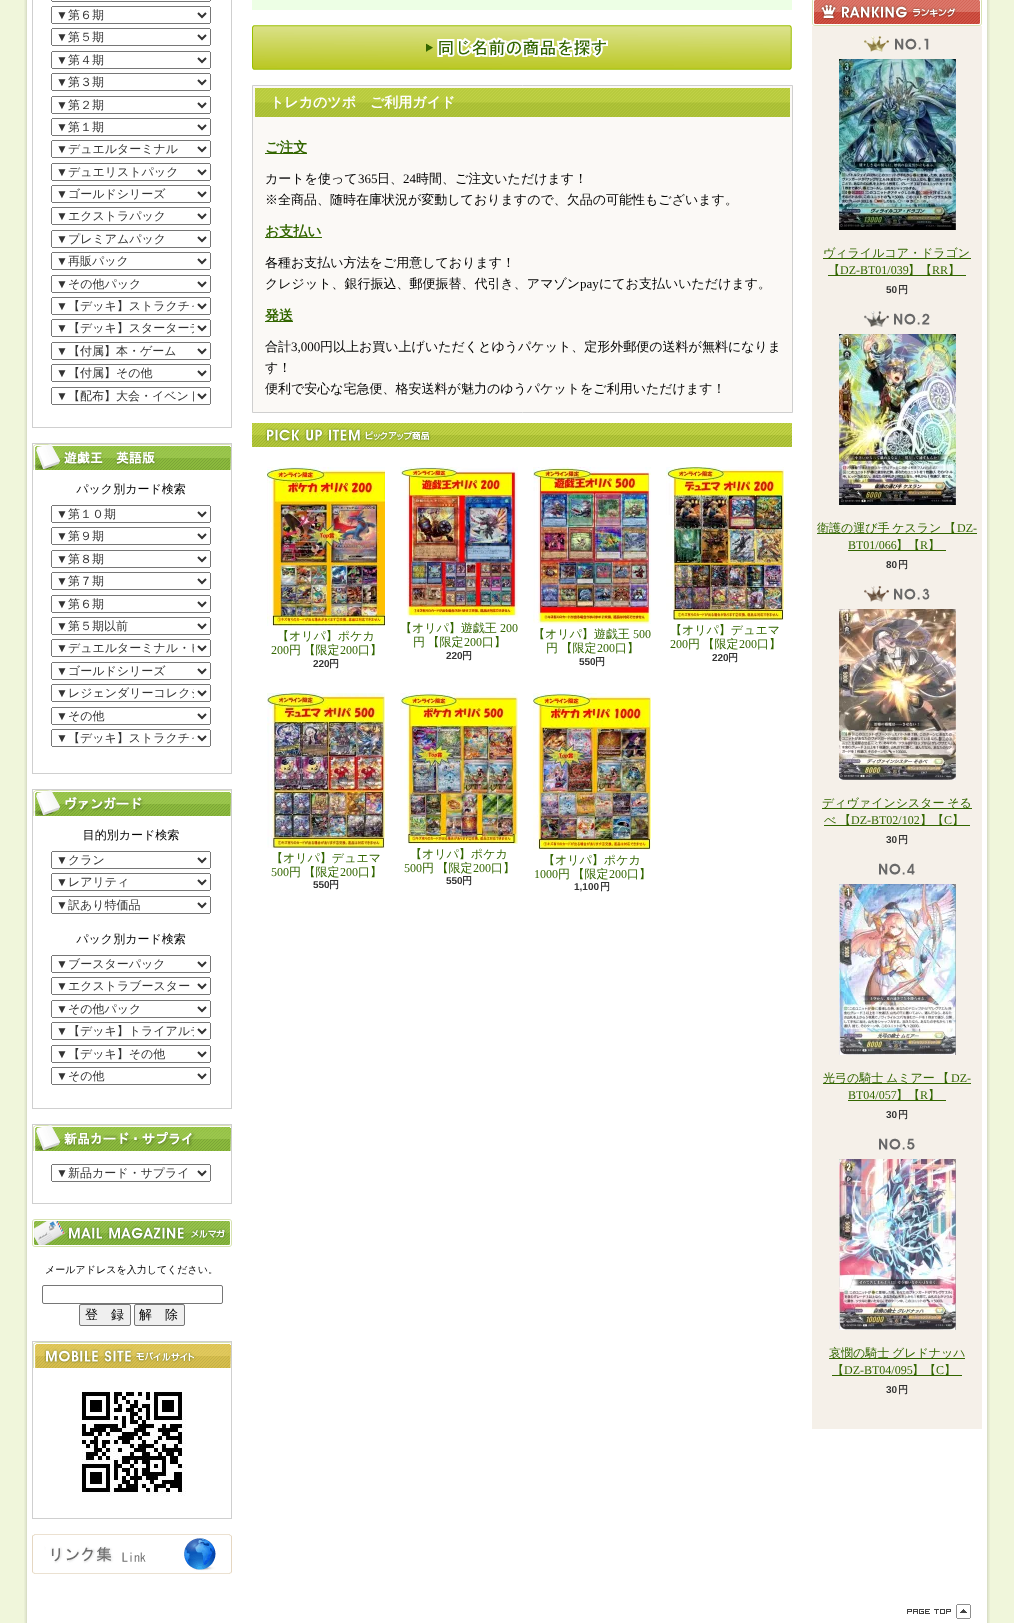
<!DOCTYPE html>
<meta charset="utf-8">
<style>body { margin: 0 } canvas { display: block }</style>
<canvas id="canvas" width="1014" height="1623"></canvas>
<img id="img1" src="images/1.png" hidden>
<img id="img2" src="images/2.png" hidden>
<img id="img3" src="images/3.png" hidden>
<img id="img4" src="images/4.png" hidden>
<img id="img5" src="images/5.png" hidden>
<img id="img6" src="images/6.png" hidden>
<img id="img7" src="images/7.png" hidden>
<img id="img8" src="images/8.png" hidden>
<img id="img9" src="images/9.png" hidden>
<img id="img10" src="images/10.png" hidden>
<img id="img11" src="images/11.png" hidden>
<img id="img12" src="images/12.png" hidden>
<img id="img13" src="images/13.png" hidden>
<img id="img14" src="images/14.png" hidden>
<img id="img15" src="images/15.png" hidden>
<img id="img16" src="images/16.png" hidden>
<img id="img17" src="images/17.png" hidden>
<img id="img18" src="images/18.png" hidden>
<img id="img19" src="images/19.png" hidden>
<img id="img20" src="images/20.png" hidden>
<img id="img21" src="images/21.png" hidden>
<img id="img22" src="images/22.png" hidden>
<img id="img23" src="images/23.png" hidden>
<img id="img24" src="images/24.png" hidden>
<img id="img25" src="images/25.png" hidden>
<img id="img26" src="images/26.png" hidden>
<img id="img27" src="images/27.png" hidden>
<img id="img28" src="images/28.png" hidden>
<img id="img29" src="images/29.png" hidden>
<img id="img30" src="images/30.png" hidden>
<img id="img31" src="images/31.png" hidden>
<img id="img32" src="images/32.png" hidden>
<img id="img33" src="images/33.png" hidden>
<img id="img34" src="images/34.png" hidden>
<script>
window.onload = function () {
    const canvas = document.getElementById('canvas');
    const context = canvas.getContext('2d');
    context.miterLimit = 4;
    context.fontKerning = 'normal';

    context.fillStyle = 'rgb(240, 246, 219)';
    context.fillRect(0, 0, 1014, 1623);
    context.drawImage(document.getElementById('img1'), 24, 0, 966, 1623);
    context.strokeStyle = 'rgb(207, 207, 207)';
    context.strokeRect(32.5, -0.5, 199, 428);
    context.drawImage(document.getElementById('img2'), 51, 0, 160, 405);
    context.strokeRect(32.5, 443.5, 199, 330);
    context.drawImage(document.getElementById('img3'), 33, 444, 198, 26);
    context.drawImage(document.getElementById('img4'), 51, 483, 160, 264);
    context.strokeRect(32.5, 789.5, 199, 319);
    context.drawImage(document.getElementById('img5'), 33, 790, 198, 26);
    context.drawImage(document.getElementById('img6'), 51, 829, 160, 256);
    context.strokeRect(32.5, 1124.5, 199, 79);
    context.drawImage(document.getElementById('img7'), 33, 1125, 198, 26);
    context.drawImage(document.getElementById('img8'), 51, 1164, 160, 18);
    context.drawImage(document.getElementById('img9'), 32, 1219, 200, 28);
    context.beginPath();
    context.roundRect(42.5, 1285.5, 180, 18, 1.5);
    context.strokeStyle = 'rgb(118, 118, 118)';
    context.stroke();
    context.fillStyle = 'rgb(239, 239, 239)';
    context.beginPath();
    context.roundRect(79.5, 1304.5, 51, 21, 1.5);
    context.fill();
    context.stroke();
    context.beginPath();
    context.roundRect(134.5, 1304.5, 50, 21, 1.5);
    context.fill();
    context.stroke();
    context.strokeStyle = 'rgb(207, 207, 207)';
    context.strokeRect(32.5, 1341.5, 199, 177);
    context.drawImage(document.getElementById('img10'), 33, 1342, 198, 26);
    context.drawImage(document.getElementById('img11'), 82, 1392, 104, 104);
    context.drawImage(document.getElementById('img12'), 32, 1534, 200, 40);
    context.fillStyle = 'rgb(237, 255, 229)';
    context.fillRect(252, 0, 540, 10);
    context.drawImage(document.getElementById('img13'), 252, 25, 540, 45);
    context.fillStyle = 'rgb(251, 249, 246)';
    context.beginPath();
    context.rect(252.5, 85.5, 540, 327);
    context.fill();
    context.stroke();
    context.drawImage(document.getElementById('img14'), 255, 88, 535, 29);
    context.fillStyle = 'rgb(51, 102, 0)';
    context.fillRect(265, 153, 42, 1);
    context.fillRect(265, 237, 57, 1);
    context.fillRect(265, 321, 28, 1);
    context.drawImage(document.getElementById('img15'), 252, 423, 540, 24);
    context.drawImage(document.getElementById('img16'), 267, 467, 118, 159);
    context.drawImage(document.getElementById('img17'), 400, 467, 118, 151);
    context.drawImage(document.getElementById('img18'), 533, 467, 118, 157);
    context.drawImage(document.getElementById('img19'), 666, 467, 118, 153);
    context.drawImage(document.getElementById('img20'), 267, 693, 118, 155);
    context.drawImage(document.getElementById('img21'), 400, 693, 118, 151);
    context.drawImage(document.getElementById('img22'), 533, 693, 118, 157);
    context.fillStyle = 'rgb(245, 240, 233)';
    context.fillRect(812, 26, 170, 1403);
    context.drawImage(document.getElementById('img23'), 812, 0, 170, 26);
    context.drawImage(document.getElementById('img24'), 864, 36, 65, 16);
    context.drawImage(document.getElementById('img25'), 839, 59, 117, 171);
    context.fillStyle = 'rgb(51, 102, 0)';
    context.fillRect(823, 258, 148, 1);
    context.fillRect(828, 275, 138, 1);
    context.drawImage(document.getElementById('img26'), 864, 311, 66, 16);
    context.drawImage(document.getElementById('img27'), 839, 334, 117, 171);
    context.fillRect(817, 533, 160, 1);
    context.fillRect(848, 550, 98, 1);
    context.drawImage(document.getElementById('img28'), 864, 586, 66, 16);
    context.drawImage(document.getElementById('img29'), 839, 609, 117, 171);
    context.fillRect(822, 808, 150, 1);
    context.fillRect(824, 825, 146, 1);
    context.drawImage(document.getElementById('img30'), 879, 863, 36, 12);
    context.drawImage(document.getElementById('img31'), 839, 884, 117, 171);
    context.fillRect(823, 1083, 148, 1);
    context.fillRect(848, 1100, 98, 1);
    context.drawImage(document.getElementById('img32'), 879, 1138, 36, 12);
    context.drawImage(document.getElementById('img33'), 839, 1159, 117, 171);
    context.fillRect(829, 1358, 136, 1);
    context.fillRect(832, 1375, 130, 1);
    context.drawImage(document.getElementById('img34'), 907, 1604, 64, 15);
    context.font = '500 10px WenQuanYi Zen Hei';
    context.fillStyle = 'rgb(0, 0, 0)';
    context.fillText('メールアドレスを入力してください。', 45, 1273);
    context.font = '500 13px WenQuanYi Zen Hei';
    context.fillText('登　録', 85, 1319);
    context.fillText('解　除', 139, 1319);
    context.font = 'bold 14px WenQuanYi Zen Hei';
    context.fillStyle = 'rgb(255, 255, 255)';
    context.fillText('トレカのツボ　ご利用ガイド', 270, 107);
    context.fillStyle = 'rgb(51, 102, 0)';
    context.fillText('ご注文', 265, 152);
    context.font = '500 13px WenQuanYi Zen Hei';
    context.fillStyle = 'rgb(0, 0, 0)';
    context.fillText('カートを使って', 265, 183);
    context.font = '13px Liberation Serif';
    context.fillText('365', 358, 183);
    context.font = '500 13px WenQuanYi Zen Hei';
    context.fillText('日、', 377, 183);
    context.font = '13px Liberation Serif';
    context.fillText('24', 403, 183);
    context.font = '500 13px WenQuanYi Zen Hei';
    context.fillText('時間、ご注文いただけます！', 416, 183);
    context.fillText('※全商品、随時在庫状況が変動しておりますので、欠品の可能性もございます。', 265, 204);
    context.font = 'bold 14px WenQuanYi Zen Hei';
    context.fillStyle = 'rgb(51, 102, 0)';
    context.fillText('お支払い', 265, 236);
    context.font = '500 13px WenQuanYi Zen Hei';
    context.fillStyle = 'rgb(0, 0, 0)';
    context.fillText('各種お支払い方法をご用意しております！', 265, 267);
    context.fillText('クレジット、銀行振込、郵便振替、代引き、アマゾン', 265, 288);
    context.font = '13px Liberation Serif';
    context.fillText('pay', 580, 288);
    context.font = '500 13px WenQuanYi Zen Hei';
    context.fillText('にてお支払いいただけます。', 599, 288);
    context.font = 'bold 14px WenQuanYi Zen Hei';
    context.fillStyle = 'rgb(51, 102, 0)';
    context.fillText('発送', 265, 320);
    context.font = '500 13px WenQuanYi Zen Hei';
    context.fillStyle = 'rgb(0, 0, 0)';
    context.fillText('合計', 265, 351);
    context.font = '13px Liberation Serif';
    context.fillText('3,000', 291, 351);
    context.font = '500 13px WenQuanYi Zen Hei';
    context.fillText('円以上お買い上げいただくとゆうパケット、定形外郵便の送料が無料になりま', 320, 351);
    context.fillText('す！', 265, 372);
    context.fillText('便利で安心な宅急便、格安送料が魅力のゆうパケットをご利用いただけます！', 265, 393);
    context.font = '500 12px WenQuanYi Zen Hei';
    context.fillStyle = 'rgb(51, 102, 0)';
    context.fillText('【オリパ】ポケカ', 277, 640);
    context.font = '12px Liberation Serif';
    context.fillText('200', 271, 654);
    context.wordSpacing = '-1px';
    context.font = '500 12px WenQuanYi Zen Hei';
    context.fillText('円 【限定', 289, 654);
    context.wordSpacing = '0px';
    context.font = '12px Liberation Serif';
    context.fillText('200', 340, 654);
    context.font = '500 12px WenQuanYi Zen Hei';
    context.fillText('口】', 358, 654);
    context.font = 'bold 10px Liberation Sans';
    context.fillStyle = 'rgb(51, 51, 51)';
    context.fillText('220', 313, 667);
    context.font = 'bold 10px WenQuanYi Zen Hei';
    context.fillText('円', 329, 667);
    context.font = '500 12px WenQuanYi Zen Hei';
    context.fillStyle = 'rgb(51, 102, 0)';
    context.fillText('【オリパ】遊戯王', 400, 632);
    context.font = '12px Liberation Serif';
    context.fillText('200', 500, 632);
    context.wordSpacing = '-1px';
    context.font = '500 12px WenQuanYi Zen Hei';
    context.fillText('円 【限定', 413, 646);
    context.wordSpacing = '0px';
    context.font = '12px Liberation Serif';
    context.fillText('200', 464, 646);
    context.font = '500 12px WenQuanYi Zen Hei';
    context.fillText('口】', 482, 646);
    context.font = 'bold 10px Liberation Sans';
    context.fillStyle = 'rgb(51, 51, 51)';
    context.fillText('220', 446, 659);
    context.font = 'bold 10px WenQuanYi Zen Hei';
    context.fillText('円', 462, 659);
    context.font = '500 12px WenQuanYi Zen Hei';
    context.fillStyle = 'rgb(51, 102, 0)';
    context.fillText('【オリパ】遊戯王', 533, 638);
    context.font = '12px Liberation Serif';
    context.fillText('500', 633, 638);
    context.wordSpacing = '-1px';
    context.font = '500 12px WenQuanYi Zen Hei';
    context.fillText('円 【限定', 546, 652);
    context.wordSpacing = '0px';
    context.font = '12px Liberation Serif';
    context.fillText('200', 597, 652);
    context.font = '500 12px WenQuanYi Zen Hei';
    context.fillText('口】', 615, 652);
    context.font = 'bold 10px Liberation Sans';
    context.fillStyle = 'rgb(51, 51, 51)';
    context.fillText('550', 579, 665);
    context.font = 'bold 10px WenQuanYi Zen Hei';
    context.fillText('円', 595, 665);
    context.font = '500 12px WenQuanYi Zen Hei';
    context.fillStyle = 'rgb(51, 102, 0)';
    context.fillText('【オリパ】デュエマ', 670, 634);
    context.font = '12px Liberation Serif';
    context.fillText('200', 670, 648);
    context.wordSpacing = '-1px';
    context.font = '500 12px WenQuanYi Zen Hei';
    context.fillText('円 【限定', 688, 648);
    context.wordSpacing = '0px';
    context.font = '12px Liberation Serif';
    context.fillText('200', 739, 648);
    context.font = '500 12px WenQuanYi Zen Hei';
    context.fillText('口】', 757, 648);
    context.font = 'bold 10px Liberation Sans';
    context.fillStyle = 'rgb(51, 51, 51)';
    context.fillText('220', 712, 661);
    context.font = 'bold 10px WenQuanYi Zen Hei';
    context.fillText('円', 728, 661);
    context.font = '500 12px WenQuanYi Zen Hei';
    context.fillStyle = 'rgb(51, 102, 0)';
    context.fillText('【オリパ】デュエマ', 271, 862);
    context.font = '12px Liberation Serif';
    context.fillText('500', 271, 876);
    context.wordSpacing = '-1px';
    context.font = '500 12px WenQuanYi Zen Hei';
    context.fillText('円 【限定', 289, 876);
    context.wordSpacing = '0px';
    context.font = '12px Liberation Serif';
    context.fillText('200', 340, 876);
    context.font = '500 12px WenQuanYi Zen Hei';
    context.fillText('口】', 358, 876);
    context.font = 'bold 10px Liberation Sans';
    context.fillStyle = 'rgb(51, 51, 51)';
    context.fillText('550', 313, 888);
    context.font = 'bold 10px WenQuanYi Zen Hei';
    context.fillText('円', 329, 888);
    context.font = '500 12px WenQuanYi Zen Hei';
    context.fillStyle = 'rgb(51, 102, 0)';
    context.fillText('【オリパ】ポケカ', 410, 858);
    context.font = '12px Liberation Serif';
    context.fillText('500', 404, 872);
    context.wordSpacing = '-1px';
    context.font = '500 12px WenQuanYi Zen Hei';
    context.fillText('円 【限定', 422, 872);
    context.wordSpacing = '0px';
    context.font = '12px Liberation Serif';
    context.fillText('200', 473, 872);
    context.font = '500 12px WenQuanYi Zen Hei';
    context.fillText('口】', 491, 872);
    context.font = 'bold 10px Liberation Sans';
    context.fillStyle = 'rgb(51, 51, 51)';
    context.fillText('550', 446, 884);
    context.font = 'bold 10px WenQuanYi Zen Hei';
    context.fillText('円', 462, 884);
    context.font = '500 12px WenQuanYi Zen Hei';
    context.fillStyle = 'rgb(51, 102, 0)';
    context.fillText('【オリパ】ポケカ', 543, 864);
    context.font = '12px Liberation Serif';
    context.fillText('1000', 534, 878);
    context.wordSpacing = '-1px';
    context.font = '500 12px WenQuanYi Zen Hei';
    context.fillText('円 【限定', 558, 878);
    context.wordSpacing = '0px';
    context.font = '12px Liberation Serif';
    context.fillText('200', 609, 878);
    context.font = '500 12px WenQuanYi Zen Hei';
    context.fillText('口】', 627, 878);
    context.font = 'bold 10px Liberation Sans';
    context.fillStyle = 'rgb(51, 51, 51)';
    context.fillText('1,100', 574, 890);
    context.font = 'bold 10px WenQuanYi Zen Hei';
    context.fillText('円', 600, 890);
    context.font = '500 12px WenQuanYi Zen Hei';
    context.fillStyle = 'rgb(51, 102, 0)';
    context.fillText('ヴィライルコア・ドラゴン', 823, 257);
    context.fillText('【', 828, 274);
    context.font = '12px Liberation Serif';
    context.fillText('DZ-BT01/039', 840, 274);
    context.font = '500 12px WenQuanYi Zen Hei';
    context.fillText('】【', 908, 274);
    context.font = '12px Liberation Serif';
    context.fillText('RR', 932, 274);
    context.font = '500 12px WenQuanYi Zen Hei';
    context.fillText('】', 948, 274);
    context.font = 'bold 10px Liberation Sans';
    context.fillStyle = 'rgb(51, 51, 51)';
    context.fillText('50', 886, 293);
    context.font = 'bold 10px WenQuanYi Zen Hei';
    context.fillText('円', 898, 293);
    context.wordSpacing = '-1px';
    context.font = '500 12px WenQuanYi Zen Hei';
    context.fillStyle = 'rgb(51, 102, 0)';
    context.fillText('衛護の運び手 ケスラン 【', 817, 532);
    context.wordSpacing = '0px';
    context.font = '12px Liberation Serif';
    context.fillText('DZ-', 957, 532);
    context.fillText('BT01/066', 848, 549);
    context.font = '500 12px WenQuanYi Zen Hei';
    context.fillText('】【', 896, 549);
    context.font = '12px Liberation Serif';
    context.fillText('R', 920, 549);
    context.font = '500 12px WenQuanYi Zen Hei';
    context.fillText('】', 928, 549);
    context.font = 'bold 10px Liberation Sans';
    context.fillStyle = 'rgb(51, 51, 51)';
    context.fillText('80', 886, 568);
    context.font = 'bold 10px WenQuanYi Zen Hei';
    context.fillText('円', 898, 568);
    context.wordSpacing = '-1px';
    context.font = '500 12px WenQuanYi Zen Hei';
    context.fillStyle = 'rgb(51, 102, 0)';
    context.fillText('ディヴァインシスター そる', 822, 807);
    context.fillText('べ 【', 824, 824);
    context.wordSpacing = '0px';
    context.font = '12px Liberation Serif';
    context.fillText('DZ-BT02/102', 851, 824);
    context.font = '500 12px WenQuanYi Zen Hei';
    context.fillText('】【', 920, 824);
    context.font = '12px Liberation Serif';
    context.fillText('C', 944, 824);
    context.font = '500 12px WenQuanYi Zen Hei';
    context.fillText('】', 952, 824);
    context.font = 'bold 10px Liberation Sans';
    context.fillStyle = 'rgb(51, 51, 51)';
    context.fillText('30', 886, 843);
    context.font = 'bold 10px WenQuanYi Zen Hei';
    context.fillText('円', 898, 843);
    context.wordSpacing = '-1px';
    context.font = '500 12px WenQuanYi Zen Hei';
    context.fillStyle = 'rgb(51, 102, 0)';
    context.fillText('光弓の騎士 ムミアー 【', 823, 1082);
    context.wordSpacing = '0px';
    context.font = '12px Liberation Serif';
    context.fillText('DZ-', 951, 1082);
    context.fillText('BT04/057', 848, 1099);
    context.font = '500 12px WenQuanYi Zen Hei';
    context.fillText('】【', 896, 1099);
    context.font = '12px Liberation Serif';
    context.fillText('R', 920, 1099);
    context.font = '500 12px WenQuanYi Zen Hei';
    context.fillText('】', 928, 1099);
    context.font = 'bold 10px Liberation Sans';
    context.fillStyle = 'rgb(51, 51, 51)';
    context.fillText('30', 886, 1118);
    context.font = 'bold 10px WenQuanYi Zen Hei';
    context.fillText('円', 898, 1118);
    context.wordSpacing = '-1px';
    context.font = '500 12px WenQuanYi Zen Hei';
    context.fillStyle = 'rgb(51, 102, 0)';
    context.fillText('哀憫の騎士 グレドナッハ', 829, 1357);
    context.wordSpacing = '0px';
    context.fillText('【', 832, 1374);
    context.font = '12px Liberation Serif';
    context.fillText('DZ-BT04/095', 844, 1374);
    context.font = '500 12px WenQuanYi Zen Hei';
    context.fillText('】【', 912, 1374);
    context.font = '12px Liberation Serif';
    context.fillText('C', 936, 1374);
    context.font = '500 12px WenQuanYi Zen Hei';
    context.fillText('】', 944, 1374);
    context.font = 'bold 10px Liberation Sans';
    context.fillStyle = 'rgb(51, 51, 51)';
    context.fillText('30', 886, 1393);
    context.font = 'bold 10px WenQuanYi Zen Hei';
    context.fillText('円', 898, 1393);
};
</script>
